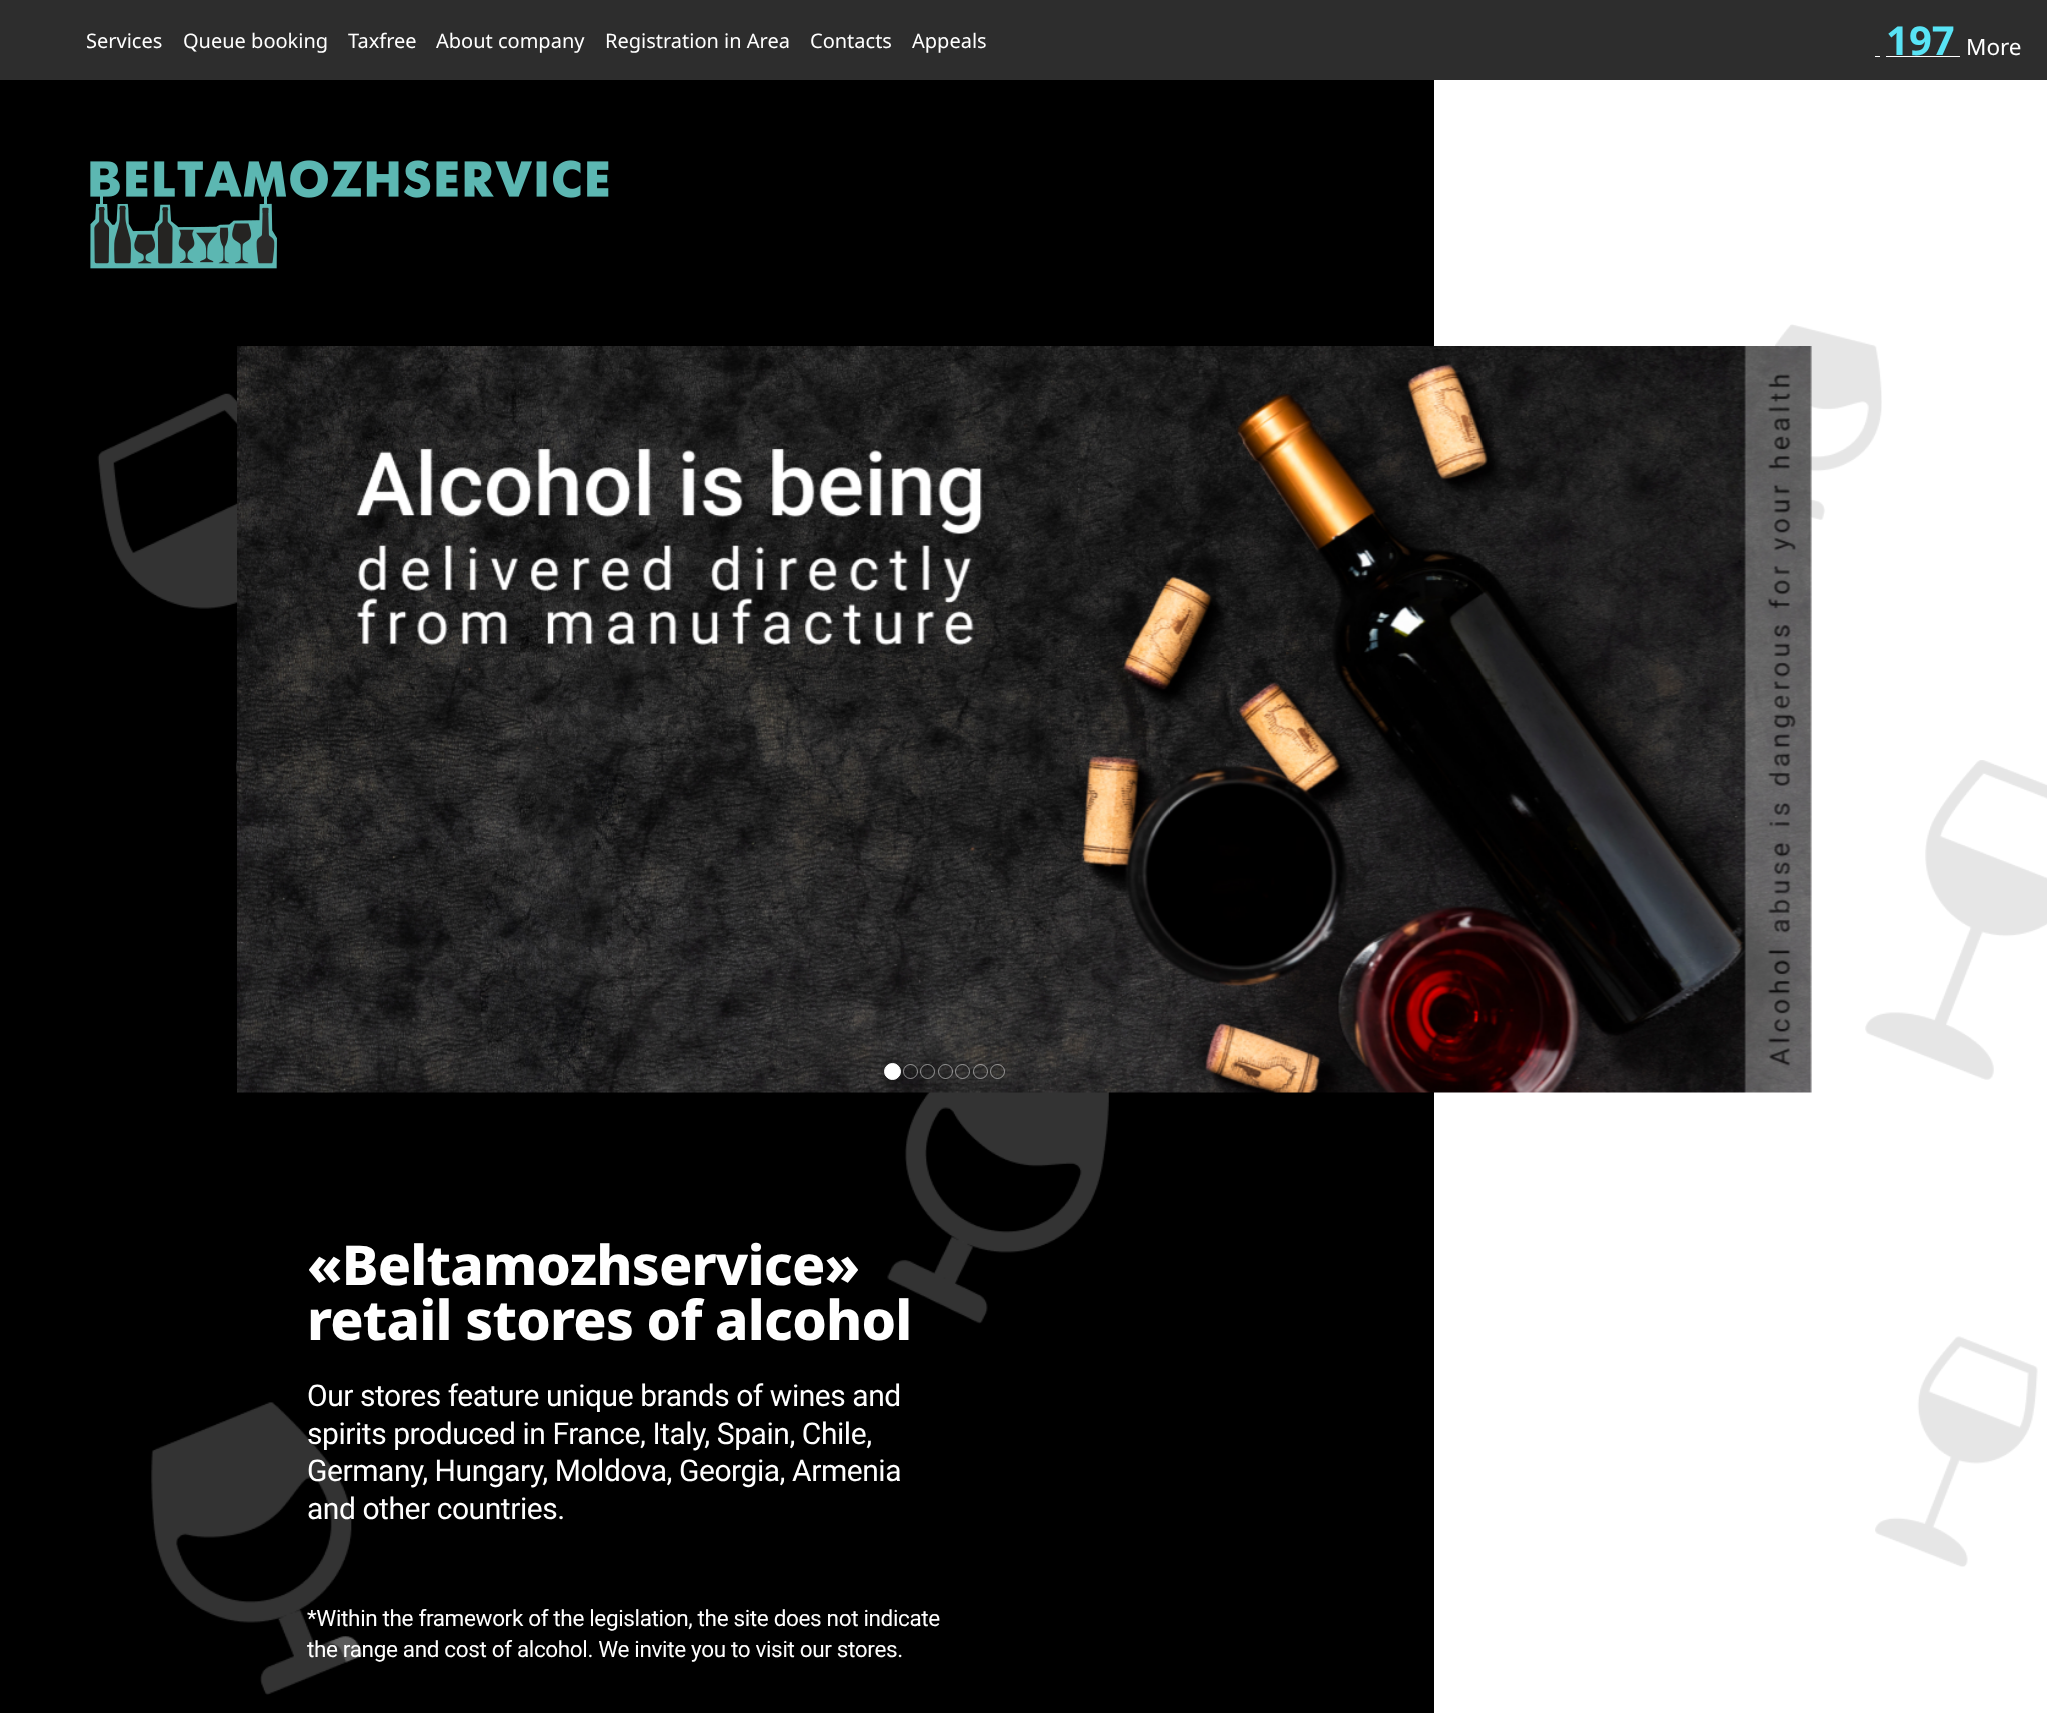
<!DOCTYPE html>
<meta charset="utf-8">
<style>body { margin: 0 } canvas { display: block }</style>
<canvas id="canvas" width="2047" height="1713"></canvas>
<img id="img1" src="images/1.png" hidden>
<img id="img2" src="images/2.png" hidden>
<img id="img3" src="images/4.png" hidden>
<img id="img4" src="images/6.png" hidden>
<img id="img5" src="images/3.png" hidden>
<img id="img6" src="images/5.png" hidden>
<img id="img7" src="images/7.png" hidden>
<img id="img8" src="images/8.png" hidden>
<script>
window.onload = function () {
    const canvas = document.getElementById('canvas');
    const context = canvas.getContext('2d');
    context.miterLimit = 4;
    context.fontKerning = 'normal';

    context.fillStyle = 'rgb(255, 255, 255)';
    context.fillRect(0, 0, 2047, 1713);
    context.fillStyle = 'rgb(45, 45, 45)';
    context.fillRect(0, 0, 2047, 80);
    context.fillStyle = 'rgb(255, 255, 255)';
    context.fillRect(1875, 56, 5, 1);
    context.fillRect(1886, 56, 74, 1);
    context.fillStyle = 'rgb(0, 0, 0)';
    context.fillRect(0, 80, 1434, 1633);
    context.drawImage(document.getElementById('img1'), 90, 160, 519, 109);
    context.drawImage(document.getElementById('img2'), 97, 393, 142, 385);
    context.drawImage(document.getElementById('img3'), 1775, 324, 107, 196);
    context.drawImage(document.getElementById('img4'), 887, 1092, 222, 232);
    context.drawImage(document.getElementById('img5'), 237, 346, 1575, 747);
    context.fillStyle = 'rgb(255, 255, 255)';
    context.beginPath();
    context.arc(892.5, 1071.5, 8, 0, 2 * Math.PI);
    context.fill();
    context.strokeStyle = 'rgb(255, 255, 255)';
    context.stroke();
    context.beginPath();
    context.arc(910.5, 1071.5, 7, 0, 2 * Math.PI);
    context.strokeStyle = 'rgba(255, 255, 255, 0.5)';
    context.stroke();
    context.beginPath();
    context.arc(927.5, 1071.5, 7, 0, 2 * Math.PI);
    context.stroke();
    context.beginPath();
    context.arc(945.5, 1071.5, 7, 0, 2 * Math.PI);
    context.stroke();
    context.beginPath();
    context.arc(962.5, 1071.5, 7, 0, 2 * Math.PI);
    context.stroke();
    context.beginPath();
    context.arc(980.5, 1071.5, 7, 0, 2 * Math.PI);
    context.stroke();
    context.beginPath();
    context.arc(997.5, 1071.5, 7, 0, 2 * Math.PI);
    context.stroke();
    context.drawImage(document.getElementById('img6'), 1865, 760, 182, 320);
    context.drawImage(document.getElementById('img7'), 151, 1402, 212, 293);
    context.drawImage(document.getElementById('img8'), 1875, 1336, 163, 231);
    context.font = '20px Noto Sans';
    context.fillText('Services', 86, 48);
    context.fillText('Queue booking', 183, 48);
    context.fillText('Taxfree', 348, 48);
    context.fillText('About company', 436, 48);
    context.fillText('Registration in Area', 605, 48);
    context.fillText('Contacts', 810, 48);
    context.fillText('Appeals', 912, 48);
    context.font = 'bold 40px Noto Sans';
    context.fillStyle = 'rgb(88, 227, 245)';
    context.fillText('197', 1886, 55);
    context.font = '22.5px Noto Sans';
    context.fillStyle = 'rgb(255, 255, 255)';
    context.fillText('More', 1966, 55);
    context.letterSpacing = '-0.8px';
    context.font = '800 55px Noto Sans';
    context.fillText('«Beltamozhservice»', 307, 1285);
    context.fillText('retail stores of alcohol', 307, 1340);
    context.letterSpacing = '-0.45px';
    context.font = '30px Roboto';
    context.fillText('Our stores feature unique brands of wines and', 307, 1406);
    context.fillText('spirits produced in France, Italy, Spain, Chile,', 307, 1444);
    context.fillText('Germany, Hungary, Moldova, Georgia, Armenia', 307, 1481);
    context.fillText('and other countries.', 307, 1519);
    context.letterSpacing = '-0.35px';
    context.font = '22.5px Roboto';
    context.fillText('*Within the framework of the legislation, the site does not indicate', 307, 1626);
    context.fillText('the range and cost of alcohol. We invite you to visit our stores.', 307, 1657);
};
</script>
